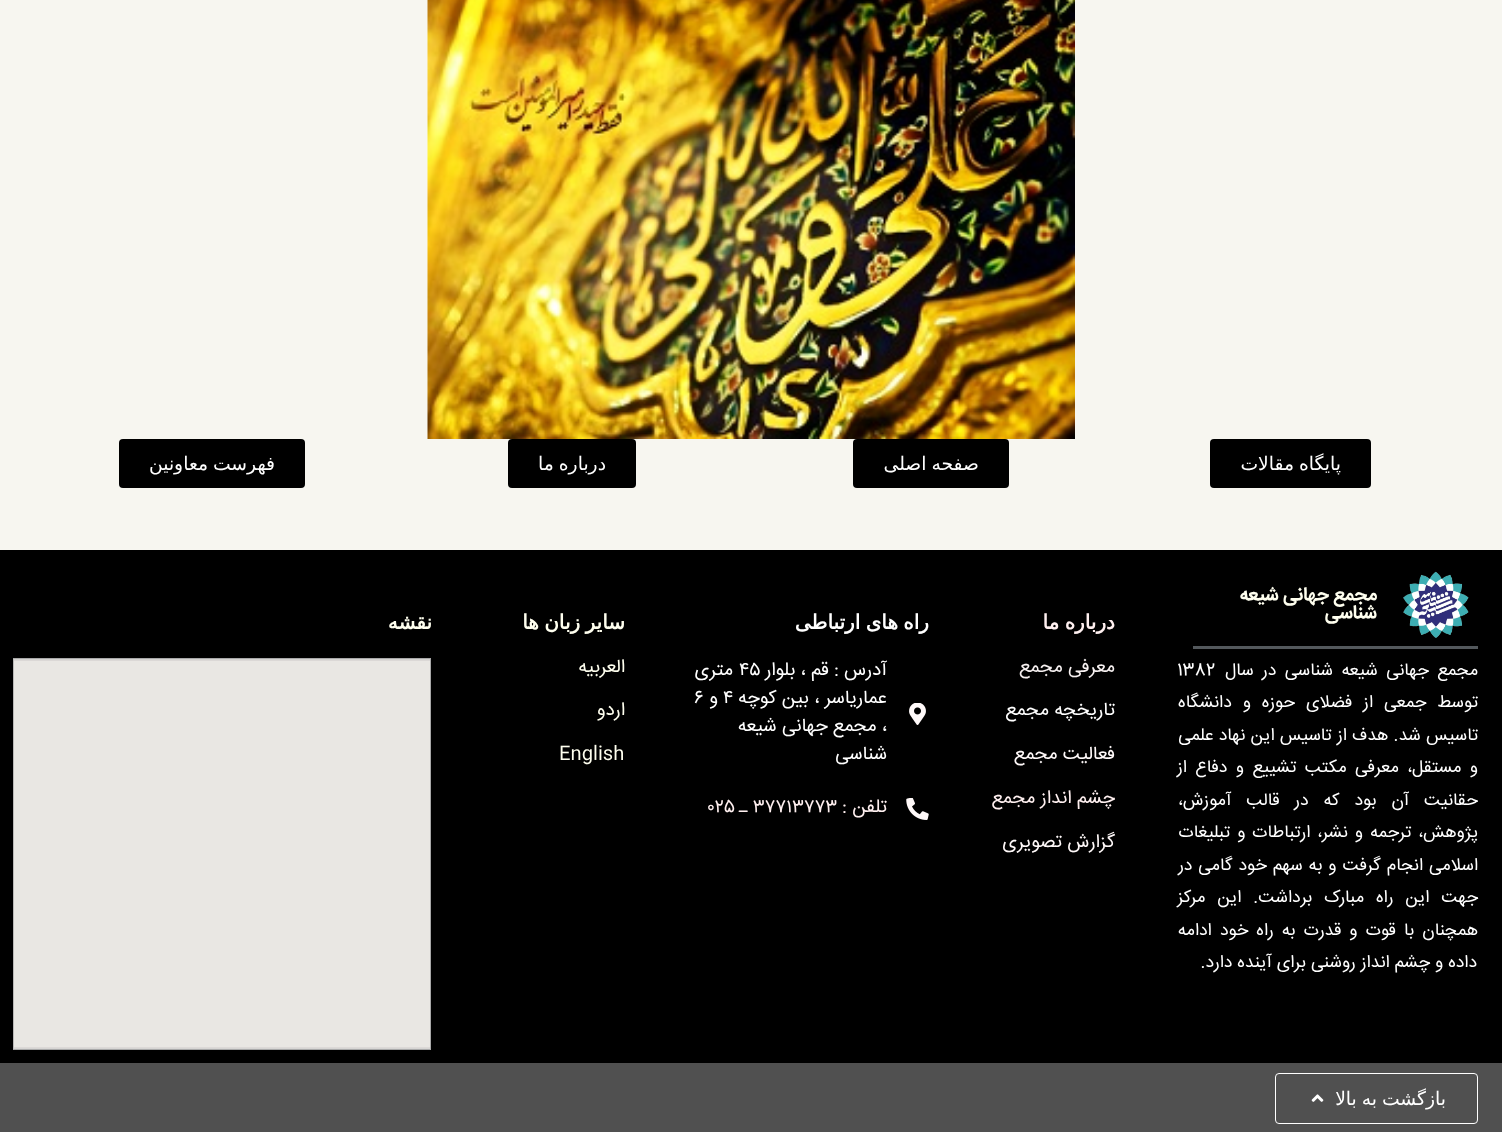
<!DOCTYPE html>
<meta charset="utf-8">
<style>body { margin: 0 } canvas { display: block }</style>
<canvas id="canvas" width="1502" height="1132"></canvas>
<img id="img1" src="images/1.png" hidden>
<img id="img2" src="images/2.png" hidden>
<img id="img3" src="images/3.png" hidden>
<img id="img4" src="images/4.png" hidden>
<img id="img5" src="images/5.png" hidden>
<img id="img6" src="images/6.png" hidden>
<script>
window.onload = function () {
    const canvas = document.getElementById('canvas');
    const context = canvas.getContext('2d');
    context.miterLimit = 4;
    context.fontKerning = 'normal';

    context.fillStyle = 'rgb(247, 246, 240)';
    context.fillRect(0, 0, 1502, 1132);
    context.drawImage(document.getElementById('img1'), 427, 0, 648, 439);
    context.fillStyle = 'rgb(0, 0, 0)';
    context.beginPath();
    context.roundRect(1210, 439, 161, 49, 4);
    context.fill();
    context.beginPath();
    context.roundRect(853, 439, 156, 49, 4);
    context.fill();
    context.beginPath();
    context.roundRect(508, 439, 128, 49, 4);
    context.fill();
    context.beginPath();
    context.roundRect(119, 439, 186, 49, 4);
    context.fill();
    context.fillRect(0, 550, 1502, 513);
    context.fillStyle = 'rgb(83, 88, 92)';
    context.fillRect(1193, 646, 285, 3);
    context.drawImage(document.getElementById('img2'), 1403, 571, 66, 67);
    context.drawImage(document.getElementById('img3'), 909, 703, 17, 22);
    context.drawImage(document.getElementById('img4'), 906, 798, 23, 22);
    context.strokeStyle = 'rgb(168, 168, 168)';
    context.strokeRect(13.5, 658.5, 417, 391);
    context.drawImage(document.getElementById('img5'), 13, 659, 417, 390);
    context.fillStyle = 'rgb(80, 80, 80)';
    context.fillRect(0, 1063, 1502, 69);
    context.beginPath();
    context.roundRect(1275.5, 1073.5, 202, 50, 3.5);
    context.strokeStyle = 'rgb(255, 255, 255)';
    context.stroke();
    context.drawImage(document.getElementById('img6'), 1311, 1094, 13, 8);
    context.wordSpacing = '-1px';
    context.direction = 'rtl';
    context.font = '18.75px DejaVu Sans';
    context.fillStyle = 'rgb(255, 255, 255)';
    context.fillText('پایگاه مقالات', 1341, 470);
    context.fillText('صفحه اصلی', 979, 470);
    context.fillText('درباره ما', 606, 470);
    context.fillText('فهرست معاونین', 275, 470);
    context.wordSpacing = '0px';
    context.font = 'bold 18.75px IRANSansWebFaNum';
    context.fillStyle = 'rgb(255, 255, 239)';
    context.fillText('مجمع جهانی شیعه', 1377, 600);
    context.fillText('شناسی', 1377, 618);
    context.wordSpacing = '3.5px';
    context.font = '17.5px IRANSansWebFaNum';
    context.fillStyle = 'rgb(255, 255, 255)';
    context.fillText('مجمع جهانی شیعه شناسی در سال', 1478, 675);
    context.wordSpacing = '0px';
    context.direction = 'ltr';
    context.fillText('1382', 1177, 675);
    context.wordSpacing = '6px';
    context.direction = 'rtl';
    context.fillText('توسط جمعی از فضلای حوزه و دانشگاه', 1478, 707);
    context.wordSpacing = '0.25px';
    context.fillText('تاسیس شد. هدف از تاسیس این نهاد علمی', 1478, 740);
    context.wordSpacing = '3.5px';
    context.fillText('و مستقل، معرفی مکتب تشییع و دفاع از', 1478, 772);
    context.wordSpacing = '10px';
    context.fillText('حقانیت آن بود که در قالب آموزش،', 1478, 805);
    context.wordSpacing = '2px';
    context.fillText('پژوهش، ترجمه و نشر، ارتباطات و تبلیغات', 1478, 837);
    context.wordSpacing = '1px';
    context.fillText('اسلامی انجام گرفت و به سهم خود گامی در', 1478, 870);
    context.wordSpacing = '7px';
    context.fillText('جهت این راه مبارک برداشت. این مرکز', 1478, 902);
    context.wordSpacing = '3.25px';
    context.fillText('همچنان با قوت و قدرت به راه خود ادامه', 1478, 935);
    context.wordSpacing = '0px';
    context.fillText('داده و چشم انداز روشنی برای آینده دارد.', 1477, 967);
    context.wordSpacing = '-1px';
    context.font = 'bold 20px DejaVu Sans';
    context.fillStyle = 'rgb(255, 240, 240)';
    context.fillText('درباره ما', 1115, 629);
    context.wordSpacing = '0px';
    context.font = '18.75px IRANSansWebFaNum';
    context.fillStyle = 'rgb(247, 241, 241)';
    context.fillText('معرفی مجمع', 1115, 672);
    context.fillStyle = 'rgb(255, 255, 255)';
    context.fillText('تاریخچه مجمع', 1115, 715);
    context.fillStyle = 'rgb(255, 249, 249)';
    context.fillText('فعالیت مجمع', 1115, 759);
    context.fillStyle = 'rgb(255, 240, 240)';
    context.fillText('چشم انداز مجمع', 1115, 803);
    context.fillStyle = 'rgb(255, 249, 249)';
    context.fillText('گزارش تصویری', 1115, 847);
    context.wordSpacing = '-1px';
    context.font = 'bold 20px DejaVu Sans';
    context.fillStyle = 'rgb(255, 255, 255)';
    context.fillText('راه های ارتباطی', 929, 629);
    context.wordSpacing = '0px';
    context.font = '18.75px IRANSansWebFaNum';
    context.fillText('آدرس : قم ، بلوار', 887, 675);
    context.direction = 'ltr';
    context.fillText('۴۵', 739, 675);
    context.direction = 'rtl';
    context.fillText('متری', 733, 675);
    context.fillText('عماریاسر ، بین کوچه', 887, 703);
    context.direction = 'ltr';
    context.fillText('۴', 723, 703);
    context.direction = 'rtl';
    context.fillText('و', 718, 703);
    context.direction = 'ltr';
    context.fillText('۶', 694, 703);
    context.direction = 'rtl';
    context.fillText('، مجمع جهانی شیعه', 887, 731);
    context.fillText('شناسی', 887, 759);
    context.fillStyle = 'rgb(255, 240, 240)';
    context.fillText('تلفن :', 887, 812);
    context.direction = 'ltr';
    context.fillText('۳۷۷۱۳۷۷۳', 753, 812);
    context.direction = 'rtl';
    context.fillText('ـ', 747, 812);
    context.direction = 'ltr';
    context.fillText('۰۲۵', 708, 812);
    context.wordSpacing = '-1px';
    context.direction = 'rtl';
    context.font = 'bold 20px DejaVu Sans';
    context.fillStyle = 'rgb(255, 255, 239)';
    context.fillText('سایر زبان ها', 625, 629);
    context.wordSpacing = '0px';
    context.font = '18.75px IRANSansWebFaNum';
    context.fillText('العربیه', 625, 672);
    context.fillText('اردو', 625, 715);
    context.direction = 'ltr';
    context.fillText('English', 559, 759);
    context.direction = 'rtl';
    context.font = 'bold 20px DejaVu Sans';
    context.fillText('نقشه', 432, 629);
    context.wordSpacing = '-1px';
    context.font = '18.75px DejaVu Sans';
    context.fillStyle = 'rgb(255, 255, 255)';
    context.fillText('بازگشت به بالا', 1446, 1105);
};
</script>
